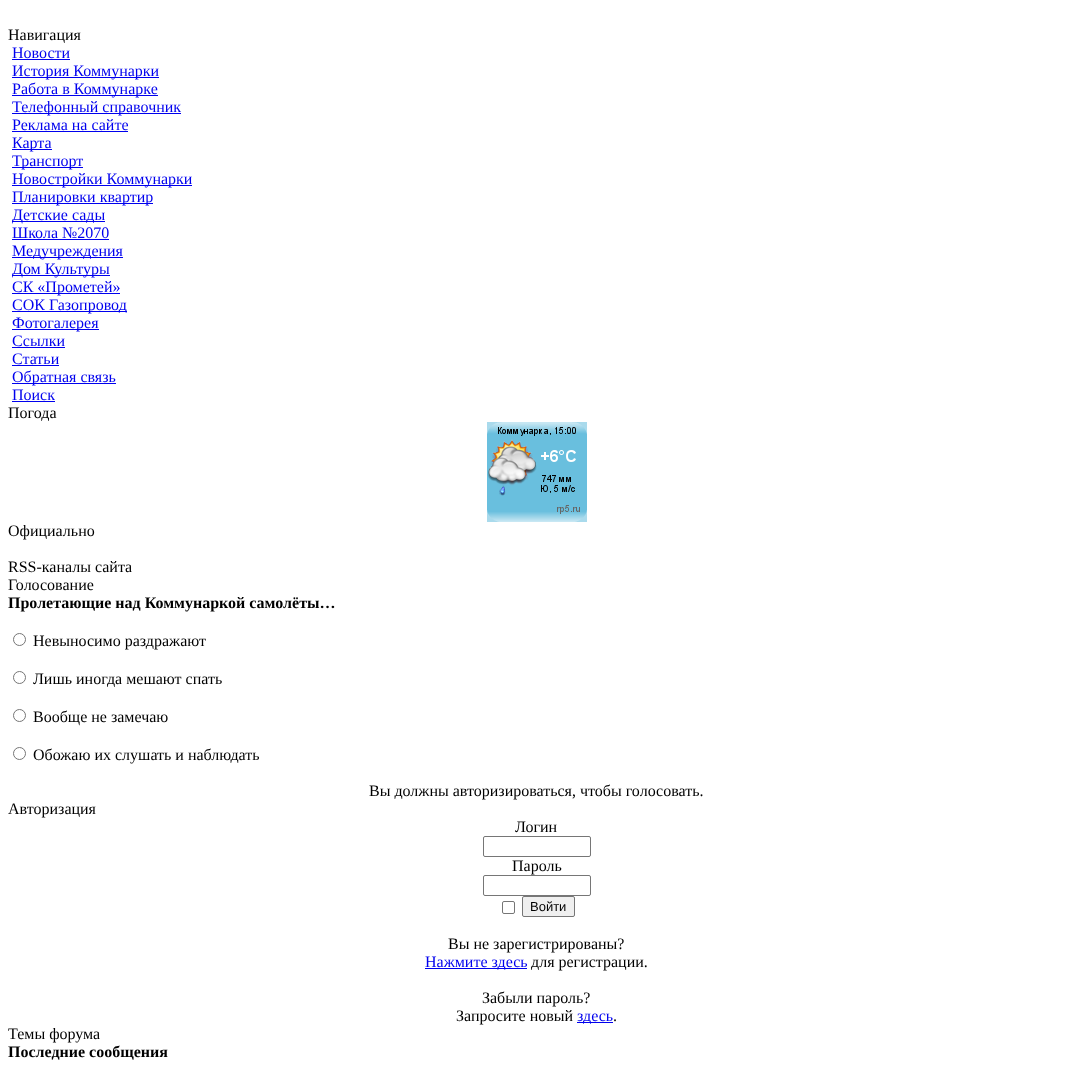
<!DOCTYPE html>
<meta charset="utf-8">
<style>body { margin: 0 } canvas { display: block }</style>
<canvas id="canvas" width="1073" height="1067"></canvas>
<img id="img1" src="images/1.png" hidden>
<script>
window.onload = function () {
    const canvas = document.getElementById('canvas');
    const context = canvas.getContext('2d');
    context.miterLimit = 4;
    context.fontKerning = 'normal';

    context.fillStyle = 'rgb(255, 255, 255)';
    context.fillRect(0, 0, 1073, 1067);
    context.fillStyle = 'rgb(0, 0, 238)';
    context.fillRect(12, 59, 58, 1);
    context.fillRect(12, 77, 147, 1);
    context.fillRect(12, 95, 146, 1);
    context.fillRect(12, 113, 169, 1);
    context.fillRect(12, 131, 116, 1);
    context.fillRect(12, 149, 40, 1);
    context.fillRect(12, 167, 71, 1);
    context.fillRect(12, 185, 180, 1);
    context.fillRect(12, 203, 141, 1);
    context.fillRect(12, 221, 93, 1);
    context.fillRect(12, 239, 97, 1);
    context.fillRect(12, 257, 111, 1);
    context.fillRect(12, 275, 98, 1);
    context.fillRect(12, 293, 108, 1);
    context.fillRect(12, 311, 115, 1);
    context.fillRect(12, 329, 87, 1);
    context.fillRect(12, 347, 53, 1);
    context.fillRect(12, 365, 47, 1);
    context.fillRect(12, 383, 104, 1);
    context.fillRect(12, 401, 43, 1);
    context.drawImage(document.getElementById('img1'), 487, 422, 100, 100);
    context.beginPath();
    context.arc(19.5, 639.5, 6, 0, 2 * Math.PI);
    context.strokeStyle = 'rgb(118, 118, 118)';
    context.stroke();
    context.beginPath();
    context.arc(19.5, 677.5, 6, 0, 2 * Math.PI);
    context.stroke();
    context.beginPath();
    context.arc(19.5, 715.5, 6, 0, 2 * Math.PI);
    context.stroke();
    context.beginPath();
    context.arc(19.5, 753.5, 6, 0, 2 * Math.PI);
    context.stroke();
    context.beginPath();
    context.roundRect(483.5, 836.5, 107, 20, 1.5);
    context.stroke();
    context.beginPath();
    context.roundRect(483.5, 875.5, 107, 20, 1.5);
    context.stroke();
    context.beginPath();
    context.roundRect(502.5, 901.5, 12, 12, 1.5);
    context.stroke();
    context.fillStyle = 'rgb(239, 239, 239)';
    context.beginPath();
    context.roundRect(522.5, 896.5, 52, 20, 1.5);
    context.fill();
    context.stroke();
    context.fillStyle = 'rgb(0, 0, 238)';
    context.fillRect(425, 968, 102, 1);
    context.fillRect(577, 1022, 36, 1);
    context.font = '16px Liberation Serif';
    context.fillStyle = 'rgb(0, 0, 0)';
    context.fillText('Навигация', 8, 40);
    context.fillStyle = 'rgb(0, 0, 238)';
    context.fillText('Новости', 12, 58);
    context.fillText('История Коммунарки', 12, 76);
    context.fillText('Работа в Коммунарке', 12, 94);
    context.fillText('Телефонный справочник', 12, 112);
    context.fillText('Реклама на сайте', 12, 130);
    context.fillText('Карта', 12, 148);
    context.fillText('Транспорт', 12, 166);
    context.fillText('Новостройки Коммунарки', 12, 184);
    context.fillText('Планировки квартир', 12, 202);
    context.fillText('Детские сады', 12, 220);
    context.fillText('Школа №2070', 12, 238);
    context.fillText('Медучреждения', 12, 256);
    context.fillText('Дом Культуры', 12, 274);
    context.fillText('СК «Прометей»', 12, 292);
    context.fillText('СОК Газопровод', 12, 310);
    context.fillText('Фотогалерея', 12, 328);
    context.fillText('Ссылки', 12, 346);
    context.fillText('Статьи', 12, 364);
    context.fillText('Обратная связь', 12, 382);
    context.fillText('Поиск', 12, 400);
    context.fillStyle = 'rgb(0, 0, 0)';
    context.fillText('Погода', 8, 418);
    context.fillText('Официально', 8, 536);
    context.fillText('RSS-каналы сайта', 8, 572);
    context.fillText('Голосование', 8, 590);
    context.font = 'bold 16px Liberation Serif';
    context.fillText('Пролетающие над Коммунаркой самолёты…', 8, 608);
    context.font = '16px Liberation Serif';
    context.fillText('Невыносимо раздражают', 33, 646);
    context.fillText('Лишь иногда мешают спать', 33, 684);
    context.fillText('Вообще не замечаю', 33, 722);
    context.fillText('Обожаю их слушать и наблюдать', 33, 760);
    context.fillText('Вы должны авторизироваться, чтобы голосовать.', 369, 796);
    context.fillText('Авторизация', 8, 814);
    context.fillText('Логин', 515, 832);
    context.fillText('Пароль', 512, 871);
    context.font = '13px Liberation Sans';
    context.fillText('Войти', 530, 911);
    context.font = '16px Liberation Serif';
    context.fillText('Вы не зарегистрированы?', 448, 949);
    context.fillStyle = 'rgb(0, 0, 238)';
    context.fillText('Нажмите здесь', 425, 967);
    context.fillStyle = 'rgb(0, 0, 0)';
    context.fillText('для регистрации.', 531, 967);
    context.fillText('Забыли пароль?', 482, 1003);
    context.fillText('Запросите новый', 456, 1021);
    context.fillStyle = 'rgb(0, 0, 238)';
    context.fillText('здесь', 577, 1021);
    context.fillStyle = 'rgb(0, 0, 0)';
    context.fillText('.', 613, 1021);
    context.fillText('Темы форума', 8, 1039);
    context.font = 'bold 16px Liberation Serif';
    context.fillText('Последние сообщения', 8, 1057);
};
</script>
